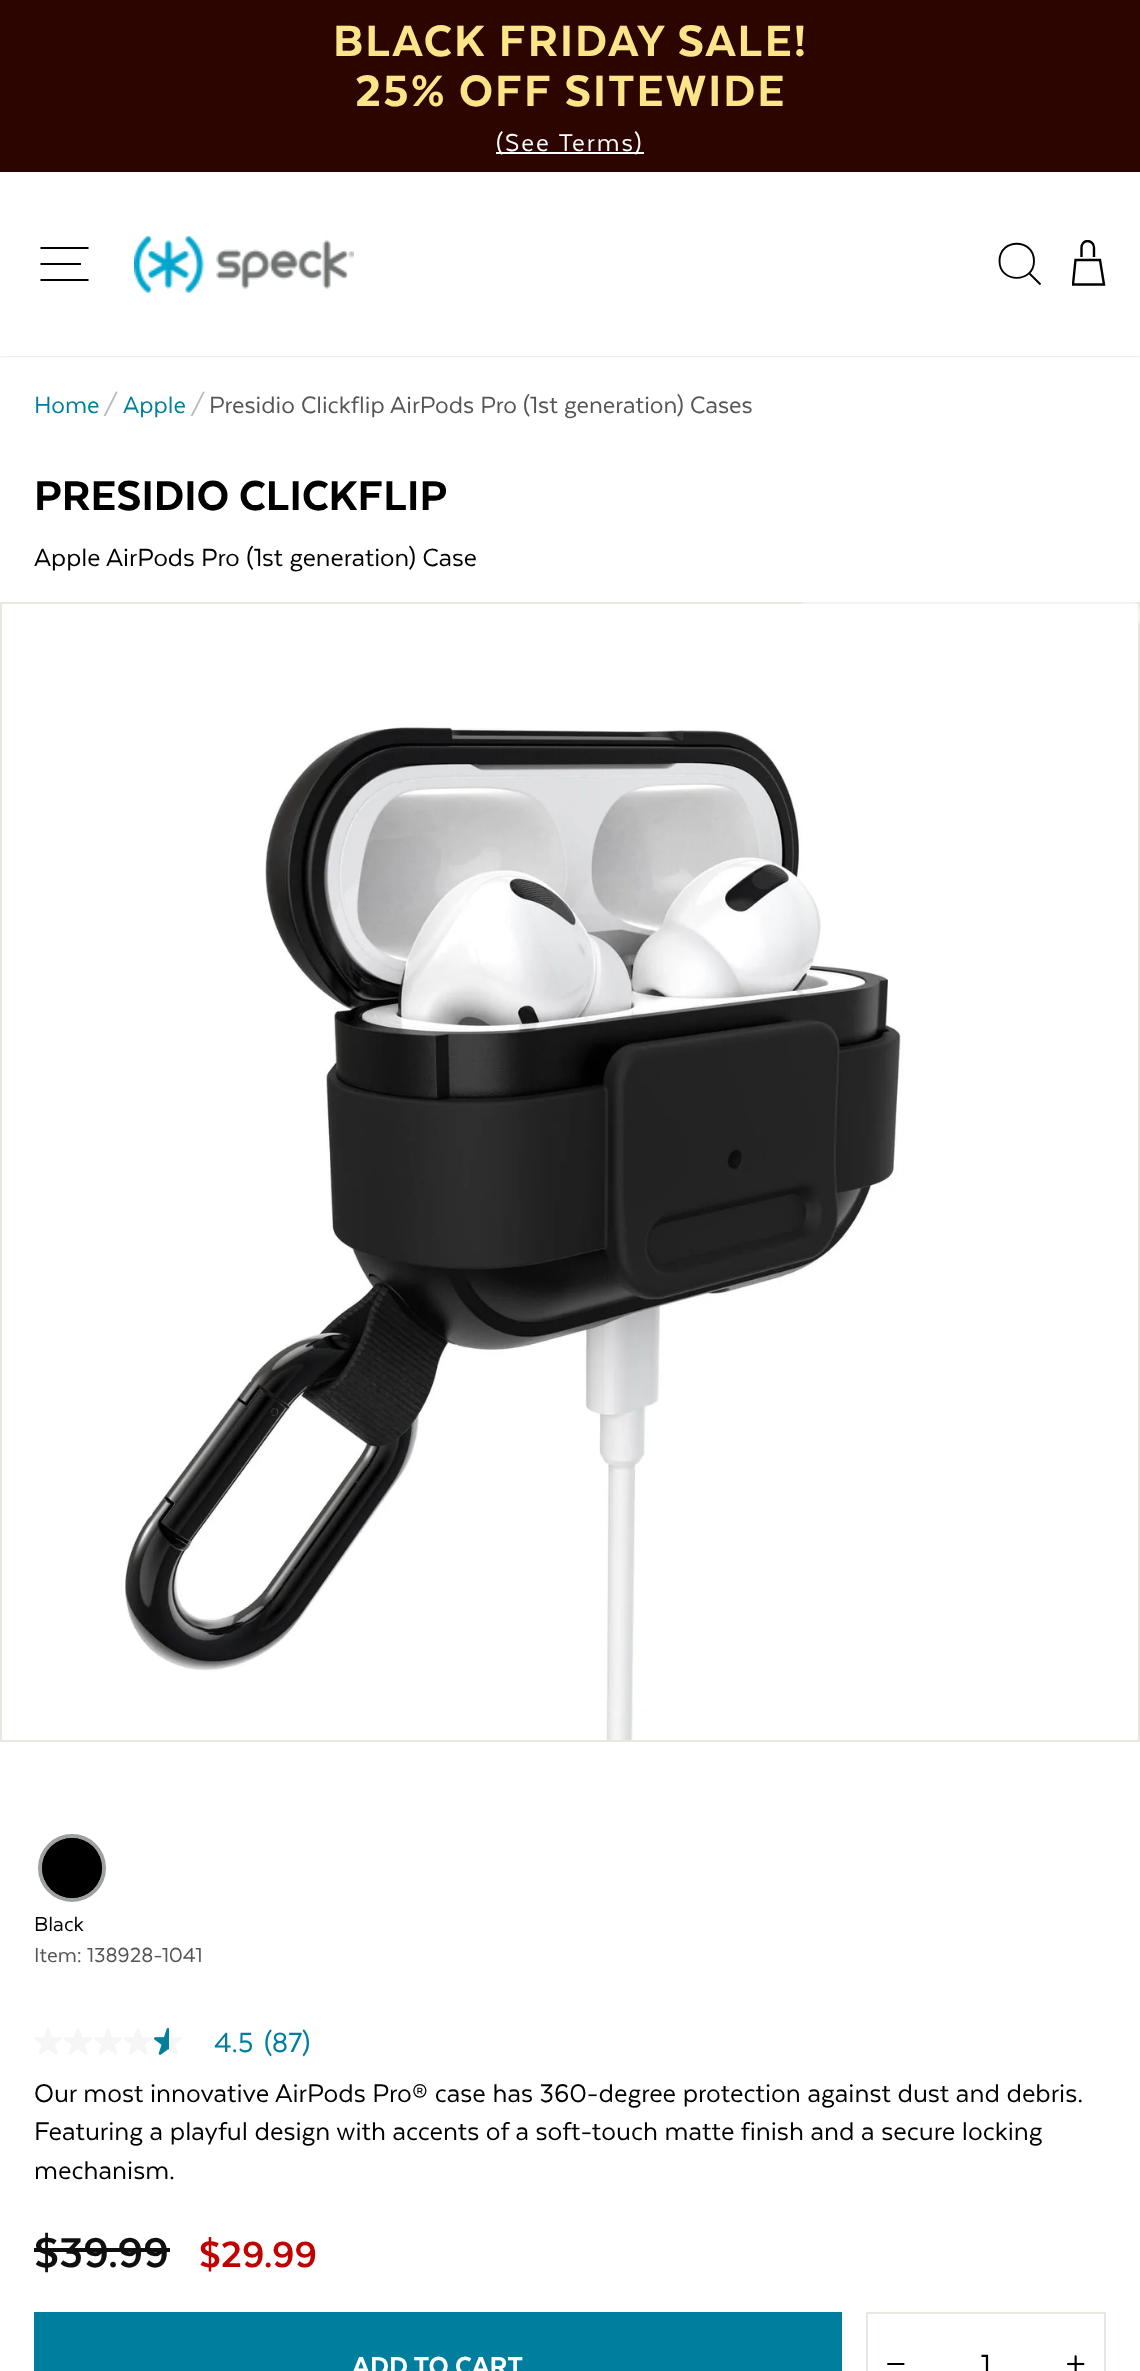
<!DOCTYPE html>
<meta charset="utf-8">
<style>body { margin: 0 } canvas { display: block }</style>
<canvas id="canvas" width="1140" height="2371"></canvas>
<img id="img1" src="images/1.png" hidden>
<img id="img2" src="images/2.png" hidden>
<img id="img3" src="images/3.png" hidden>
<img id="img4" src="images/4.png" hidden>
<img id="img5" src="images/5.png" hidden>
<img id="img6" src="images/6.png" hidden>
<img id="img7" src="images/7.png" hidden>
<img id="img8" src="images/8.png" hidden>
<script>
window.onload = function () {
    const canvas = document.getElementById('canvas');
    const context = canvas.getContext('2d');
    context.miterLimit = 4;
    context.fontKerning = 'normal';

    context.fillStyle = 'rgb(255, 255, 255)';
    context.fillRect(0, 0, 1140, 2371);
    context.fillStyle = 'rgb(44, 5, 1)';
    context.fillRect(0, 0, 1140, 172);
    context.fillStyle = 'rgb(255, 255, 255)';
    context.fillRect(496, 152, 148, 2);
    context.save();
    context.beginPath();
    context.moveTo(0, 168);
    context.lineTo(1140, 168);
    context.lineTo(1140, 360);
    context.lineTo(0, 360);
    context.closePath();
    context.moveTo(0, 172);
    context.lineTo(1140, 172);
    context.lineTo(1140, 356);
    context.lineTo(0, 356);
    context.closePath();
    context.clip('evenodd');
    context.fillStyle = 'rgba(0, 0, 0, 0.2)';
    context.filter = 'blur(1px)';
    context.beginPath();
    context.rect(0, 172, 1140, 184);
    context.fill();
    context.filter = 'none';
    context.restore();
    context.beginPath();
    context.moveTo(40.5, 248);
    context.lineTo(88.5, 248);
    context.moveTo(40.5, 264);
    context.lineTo(81, 264);
    context.moveTo(40.5, 280);
    context.lineTo(88.5, 280);
    context.strokeStyle = 'rgb(0, 0, 0)';
    context.lineWidth = 1.9;
    context.stroke();
    context.drawImage(document.getElementById('img1'), 134, 236, 220, 57);
    context.beginPath();
    context.moveTo(1034, 261);
    context.bezierCurveTo(1034, 283.5, 999.5, 283.5, 999.5, 261);
    context.bezierCurveTo(999.5, 238, 1034, 238, 1034, 261);
    context.closePath();
    context.moveTo(1040.5, 284.5);
    context.lineTo(1029.5, 273.5);
    context.stroke();
    context.save();
    context.beginPath();
    context.rect(1072, 240, 34, 48);
    context.clip();
    context.beginPath();
    context.moveTo(1081.5, 257);
    context.lineTo(1081.5, 247.5);
    context.bezierCurveTo(1081.5, 244, 1084, 241, 1087.5, 241);
    context.bezierCurveTo(1091, 241, 1094, 244, 1094, 247.5);
    context.lineTo(1094, 257);
    context.moveTo(1104, 284.5);
    context.lineTo(1073, 284.5);
    context.lineTo(1075.5, 260);
    context.lineTo(1100, 260);
    context.closePath();
    context.lineWidth = 2.4;
    context.stroke();
    context.restore();
    context.strokeStyle = 'rgb(232, 232, 225)';
    context.lineWidth = 2;
    context.strokeRect(1, 603, 1138, 1138);
    context.fillStyle = 'rgba(255, 255, 255, 0.48)';
    context.beginPath();
    context.roundRect(798, 602, 342, 24, 8);
    context.fill();
    context.drawImage(document.getElementById('img2'), 124, 724, 778, 1016);
    context.drawImage(document.getElementById('img3'), 902, 724, 2, 1016);
    context.beginPath();
    context.arc(72, 1868, 32, 0, 2 * Math.PI);
    context.strokeStyle = 'rgb(157, 161, 162)';
    context.lineWidth = 4;
    context.stroke();
    context.fillStyle = 'rgb(0, 0, 0)';
    context.beginPath();
    context.arc(72, 1868, 30, 0, 2 * Math.PI);
    context.fill();
    context.drawImage(document.getElementById('img4'), 42, 1838, 60, 60);
    context.drawImage(document.getElementById('img5'), 34, 2028, 28, 27);
    context.drawImage(document.getElementById('img5'), 64, 2028, 28, 27);
    context.drawImage(document.getElementById('img5'), 94, 2028, 28, 27);
    context.drawImage(document.getElementById('img5'), 124, 2028, 28, 27);
    context.drawImage(document.getElementById('img6'), 154, 2028, 28, 27);
    context.fillStyle = 'rgb(15, 15, 15)';
    context.fillRect(34, 2248, 136, 4);
    context.fillStyle = 'rgb(0, 126, 158)';
    context.fillRect(34, 2312, 808, 59);
    context.strokeStyle = 'rgb(232, 232, 225)';
    context.lineWidth = 2;
    context.strokeRect(867, 2313, 238, 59);
    context.drawImage(document.getElementById('img7'), 887, 2363, 18, 2);
    context.drawImage(document.getElementById('img8'), 1067, 2355, 18, 16);
    context.letterSpacing = '2px';
    context.font = '900 50.5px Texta';
    context.fillStyle = 'rgb(252, 228, 136)';
    context.fillText('BLACK FRIDAY SALE!', 333, 56);
    context.fillText('25% OFF SITEWIDE', 355, 106);
    context.font = '28px Texta';
    context.fillStyle = 'rgb(255, 255, 255)';
    context.fillText('(See Terms)', 496, 151);
    context.letterSpacing = '0px';
    context.font = '27.25px Texta';
    context.fillStyle = 'rgb(0, 126, 158)';
    context.fillText('Home', 34, 413);
    context.fillStyle = 'rgb(187, 187, 187)';
    context.fillText('/', 103, 413);
    context.fillStyle = 'rgb(0, 126, 158)';
    context.fillText('Apple', 123, 413);
    context.fillStyle = 'rgb(187, 187, 187)';
    context.fillText('/', 190, 413);
    context.fillStyle = 'rgb(85, 85, 85)';
    context.fillText('Presidio Clickflip AirPods Pro (1st generation) Cases', 209, 413);
    context.font = '900 48px Texta';
    context.fillStyle = 'rgb(0, 0, 0)';
    context.fillText('PRESIDIO CLICKFLIP', 34, 510);
    context.font = '28.75px Texta';
    context.fillText('Apple', 34, 566);
    context.fillText('AirPods Pro (1st generation) Case', 106, 566);
    context.font = '23.5px Texta';
    context.fillText('Black', 34, 1931);
    context.fillStyle = 'rgb(85, 85, 85)';
    context.fillText('Item: 138928-1041', 34, 1962);
    context.font = '32px Texta';
    context.fillStyle = 'rgb(0, 126, 158)';
    context.fillText('4.5', 214, 2052);
    context.fillText('(87)', 264, 2052);
    context.font = '29.45px Texta';
    context.fillStyle = 'rgb(0, 0, 0)';
    context.fillText('Our most innovative AirPods Pro® case has 360-degree protection against dust and debris.', 34, 2102);
    context.fillText('Featuring a playful design with accents of a soft-touch matte finish and a secure locking', 34, 2140);
    context.fillText('mechanism.', 34, 2179);
    context.font = 'bold 48px Texta';
    context.fillStyle = 'rgb(15, 15, 15)';
    context.fillText('$39.99', 34, 2267);
    context.font = 'bold 42px Texta';
    context.fillStyle = 'rgb(194, 0, 0)';
    context.fillText('$29.99', 199, 2267);
    context.font = '900 30px Texta';
    context.fillStyle = 'rgb(255, 255, 255)';
    context.fillText('ADD TO CART', 352, 2375);
    context.font = '32px Texta';
    context.fillStyle = 'rgb(0, 0, 0)';
    context.fillText('1', 981, 2374);
};
</script>
